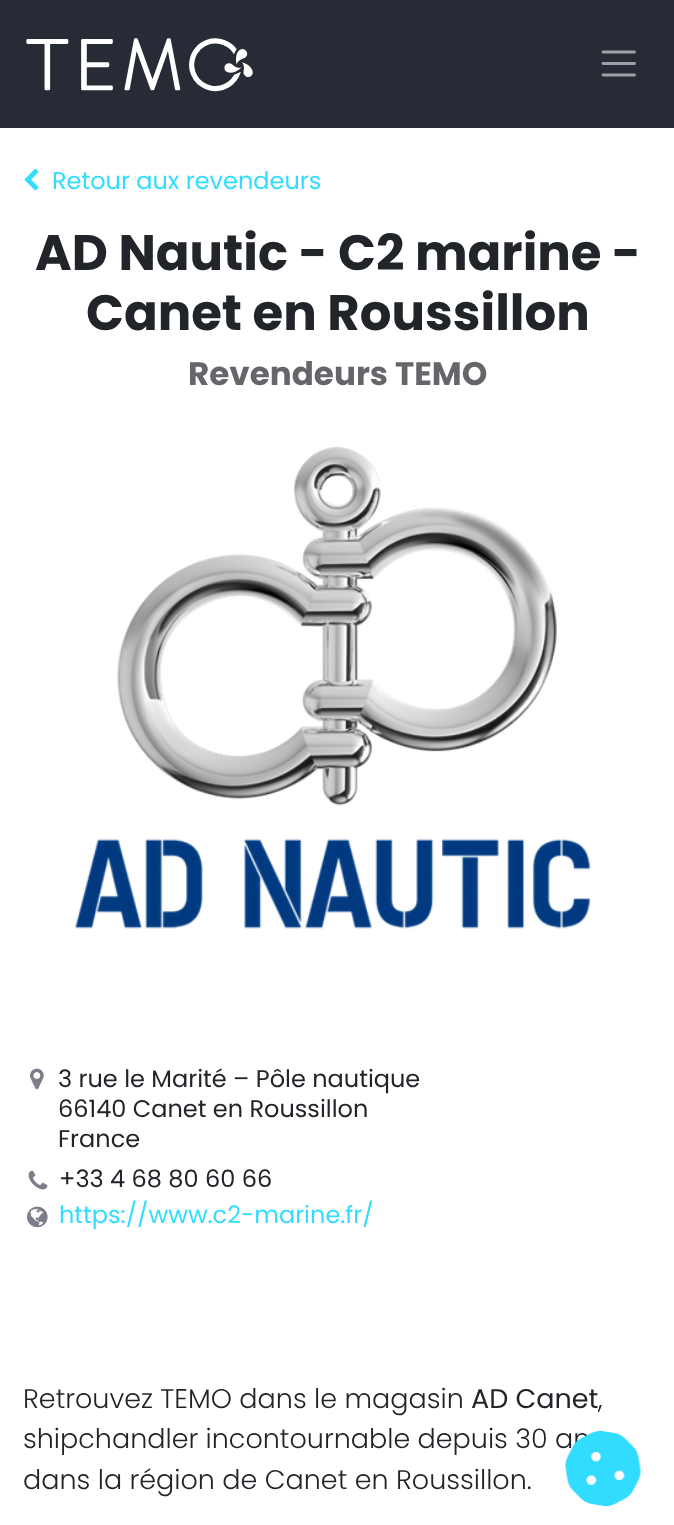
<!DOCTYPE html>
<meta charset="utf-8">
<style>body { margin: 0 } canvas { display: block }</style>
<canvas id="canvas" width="674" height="1525"></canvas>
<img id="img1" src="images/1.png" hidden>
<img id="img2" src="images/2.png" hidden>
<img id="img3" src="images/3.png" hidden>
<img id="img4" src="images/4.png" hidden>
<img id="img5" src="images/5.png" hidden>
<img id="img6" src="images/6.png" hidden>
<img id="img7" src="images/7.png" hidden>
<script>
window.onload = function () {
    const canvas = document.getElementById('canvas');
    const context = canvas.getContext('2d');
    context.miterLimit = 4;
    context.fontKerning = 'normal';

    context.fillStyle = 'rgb(255, 255, 255)';
    context.fillRect(0, 0, 674, 1525);
    context.fillStyle = 'rgb(38, 43, 53)';
    context.fillRect(0, 0, 674, 128);
    context.drawImage(document.getElementById('img1'), 26, 38, 227, 54);
    context.beginPath();
    context.moveTo(603, 52);
    context.lineTo(634.5, 52);
    context.moveTo(603, 63.5);
    context.lineTo(634.5, 63.5);
    context.moveTo(603, 75);
    context.lineTo(634.5, 75);
    context.strokeStyle = 'rgb(157, 160, 164)';
    context.lineWidth = 2.9;
    context.lineCap = 'round';
    context.stroke();
    context.drawImage(document.getElementById('img2'), 24, 168, 15, 23);
    context.drawImage(document.getElementById('img3'), 75, 446, 516, 483);
    context.drawImage(document.getElementById('img4'), 30, 1068, 14, 22);
    context.drawImage(document.getElementById('img5'), 28, 1170, 20, 20);
    context.drawImage(document.getElementById('img6'), 27, 1206, 21, 22);
    context.font = '24px Poppins';
    context.fillStyle = 'rgb(50, 220, 255)';
    context.fillText('Retour aux revendeurs', 52, 189);
    context.font = 'bold 49.75px Poppins';
    context.fillStyle = 'rgb(33, 37, 41)';
    context.fillText('AD Nautic - C2 marine -', 35, 270);
    context.fillText('Canet en Roussillon', 86, 330);
    context.font = 'bold 32.6px Poppins';
    context.fillStyle = 'rgb(100, 102, 105)';
    context.fillText('Revendeurs TEMO', 188, 385);
    context.font = '24px Poppins';
    context.fillStyle = 'rgb(33, 37, 41)';
    context.fillText('3 rue le Marité – Pôle nautique', 58, 1087);
    context.fillText('66140 Canet en Roussillon', 58, 1117);
    context.fillText('France', 58, 1147);
    context.fillText('+33 4 68 80 60 66', 59, 1187);
    context.fillStyle = 'rgb(50, 220, 255)';
    context.fillText('https://www.c2-marine.fr/', 59, 1223);
    context.font = '300 27px Poppins';
    context.fillStyle = 'rgb(33, 37, 41)';
    context.fillText('Retrouvez TEMO dans le magasin', 23, 1408);
    context.font = '27px Poppins';
    context.fillText('AD Canet', 471, 1408);
    context.font = '300 27px Poppins';
    context.fillText(',', 598, 1408);
    context.fillText('shipchandler incontournable depuis 30 an', 23, 1448);
    context.fillText('dans la région de Canet en Roussillon.', 23, 1489);
    context.drawImage(document.getElementById('img7'), 565, 1431, 76, 75);
};
</script>
